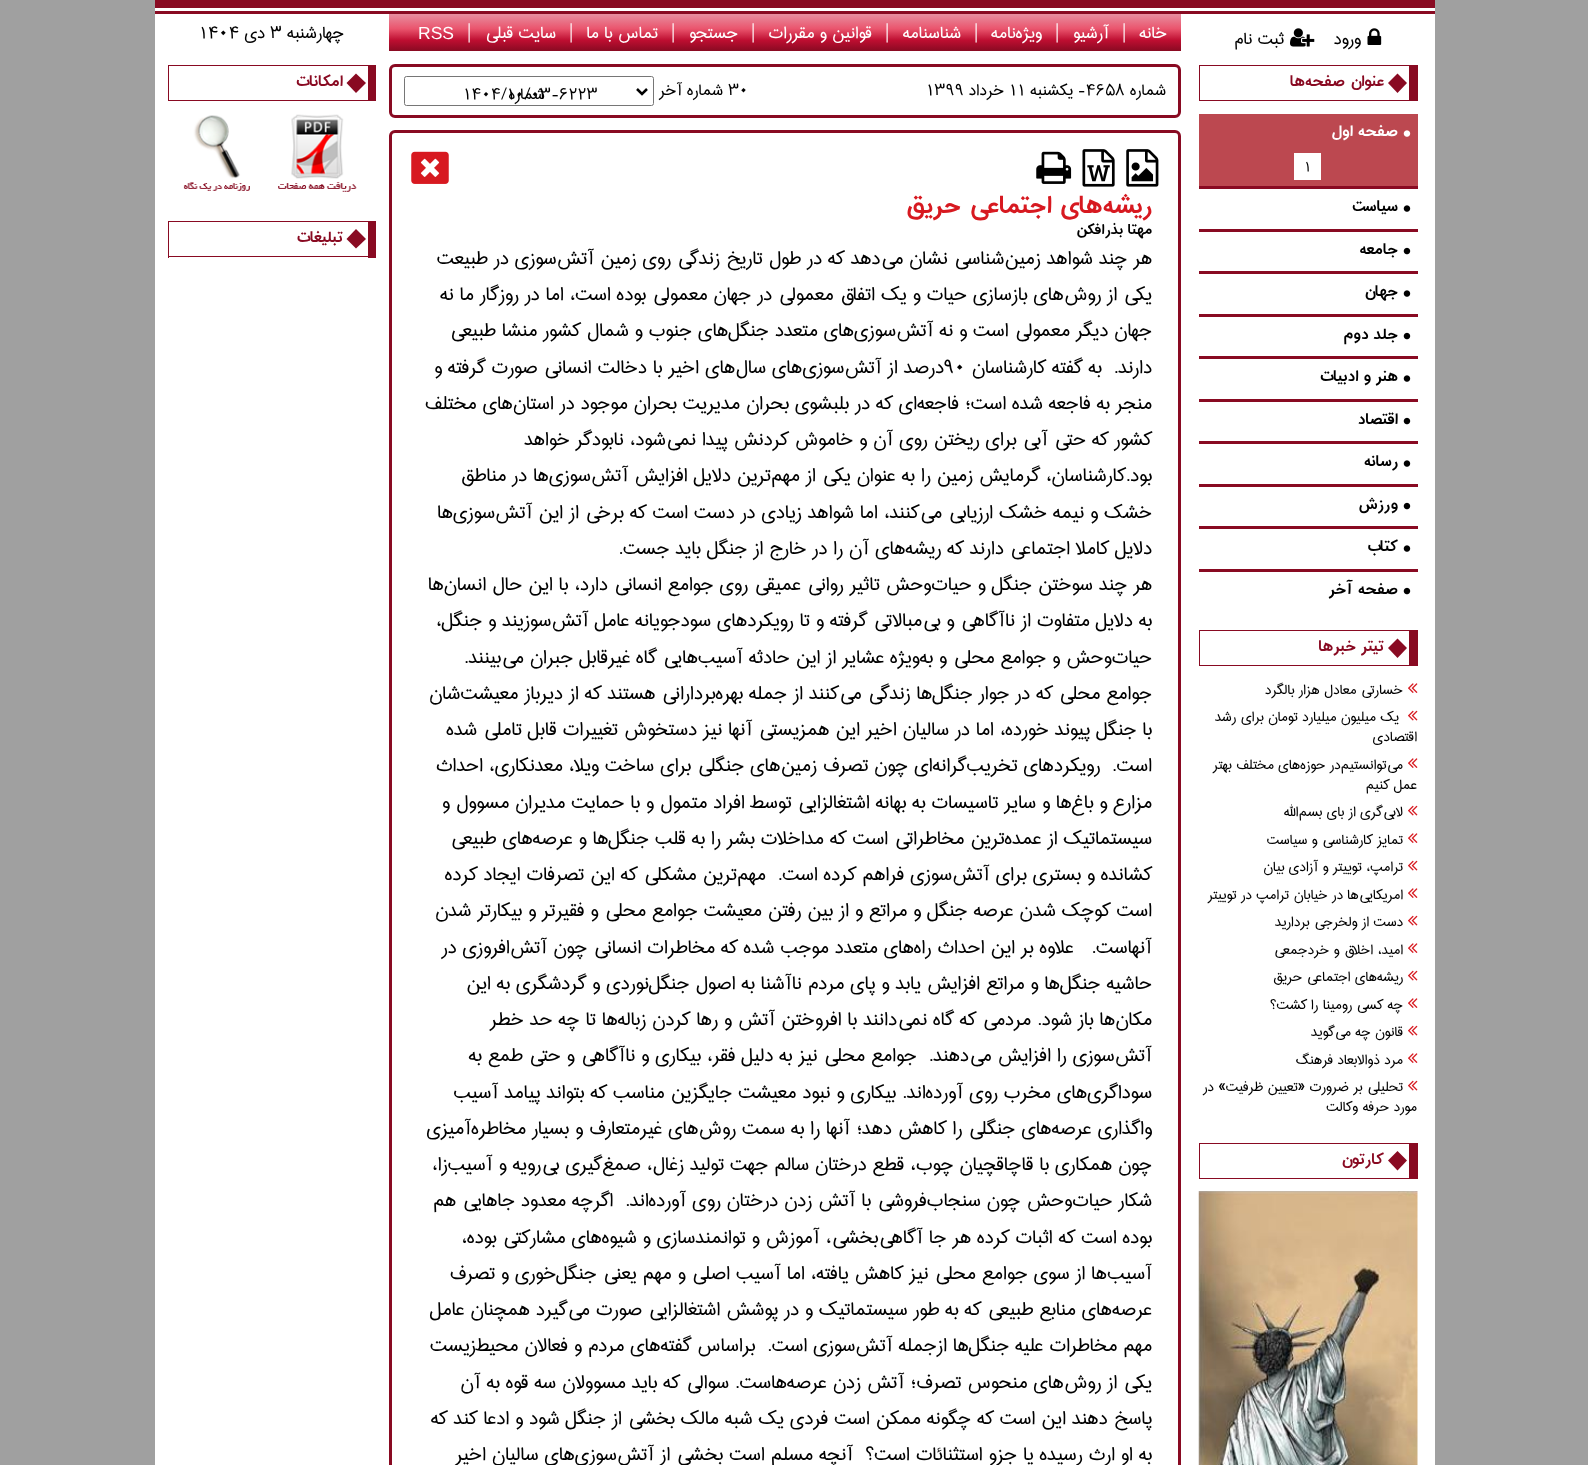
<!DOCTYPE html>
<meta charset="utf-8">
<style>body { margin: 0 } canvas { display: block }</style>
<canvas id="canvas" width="1588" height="1465"></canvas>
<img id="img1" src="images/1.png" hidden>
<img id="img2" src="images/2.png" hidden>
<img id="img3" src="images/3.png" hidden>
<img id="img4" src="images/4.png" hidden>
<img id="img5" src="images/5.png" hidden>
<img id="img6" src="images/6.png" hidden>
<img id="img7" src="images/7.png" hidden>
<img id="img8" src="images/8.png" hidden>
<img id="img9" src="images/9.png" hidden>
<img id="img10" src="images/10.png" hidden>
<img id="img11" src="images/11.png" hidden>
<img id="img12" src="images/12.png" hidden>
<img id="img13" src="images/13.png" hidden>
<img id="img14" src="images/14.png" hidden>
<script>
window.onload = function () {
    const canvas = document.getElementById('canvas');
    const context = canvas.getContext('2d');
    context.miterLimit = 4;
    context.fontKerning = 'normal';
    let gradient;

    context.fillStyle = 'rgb(160, 160, 160)';
    context.fillRect(0, 0, 1588, 1465);
    context.fillStyle = 'rgb(255, 255, 255)';
    context.fillRect(155, 8, 1280, 1457);
    context.fillStyle = 'rgb(137, 10, 34)';
    context.fillRect(155, 0, 1280, 8);
    context.fillRect(155, 11, 1280, 3);
    context.drawImage(document.getElementById('img1'), 1367, 28, 15, 17);
    context.drawImage(document.getElementById('img2'), 1290, 28, 25, 19);
    context.fillRect(1199, 65, 210, 1);
    context.fillRect(1409, 65, 9, 35);
    context.fillRect(1199, 100, 219, 1);
    context.fillRect(1199, 65, 1, 36);
    context.beginPath();
    context.moveTo(1397.5, 73.5);
    context.lineTo(1407, 83);
    context.lineTo(1397.5, 93);
    context.lineTo(1388, 83);
    context.closePath();
    context.fill();
    context.fillStyle = 'rgb(188, 72, 80)';
    context.fillRect(1199, 114, 219, 72);
    context.fillStyle = 'rgb(137, 10, 34)';
    context.fillRect(1199, 186, 219, 3);
    context.drawImage(document.getElementById('img3'), 1403, 130, 8, 7);
    context.fillStyle = 'rgb(255, 255, 255)';
    context.fillRect(1294, 153, 27, 27);
    context.fillStyle = 'rgb(137, 10, 34)';
    context.fillRect(1199, 229, 219, 3);
    context.drawImage(document.getElementById('img4'), 1403, 205, 8, 7);
    context.fillRect(1199, 271, 219, 3);
    context.drawImage(document.getElementById('img5'), 1403, 247, 8, 8);
    context.fillRect(1199, 314, 219, 3);
    context.drawImage(document.getElementById('img4'), 1403, 290, 8, 7);
    context.fillRect(1199, 356, 219, 3);
    context.drawImage(document.getElementById('img5'), 1403, 332, 8, 8);
    context.fillRect(1199, 399, 219, 3);
    context.drawImage(document.getElementById('img4'), 1403, 375, 8, 7);
    context.fillRect(1199, 441, 219, 3);
    context.drawImage(document.getElementById('img5'), 1403, 417, 8, 8);
    context.fillRect(1199, 484, 219, 3);
    context.drawImage(document.getElementById('img4'), 1403, 460, 8, 7);
    context.fillRect(1199, 526, 219, 3);
    context.drawImage(document.getElementById('img5'), 1403, 502, 8, 8);
    context.fillRect(1199, 569, 219, 3);
    context.drawImage(document.getElementById('img4'), 1403, 545, 8, 7);
    context.drawImage(document.getElementById('img5'), 1403, 587, 8, 8);
    context.fillRect(1199, 630, 210, 1);
    context.fillRect(1409, 630, 9, 35);
    context.fillRect(1199, 665, 219, 1);
    context.fillRect(1199, 630, 1, 36);
    context.beginPath();
    context.moveTo(1397.5, 638.5);
    context.lineTo(1407, 648);
    context.lineTo(1397.5, 658);
    context.lineTo(1388, 648);
    context.closePath();
    context.fill();
    context.drawImage(document.getElementById('img6'), 1408, 683, 10, 10);
    context.drawImage(document.getElementById('img7'), 1408, 710, 10, 11);
    context.drawImage(document.getElementById('img6'), 1408, 758, 10, 10);
    context.drawImage(document.getElementById('img7'), 1408, 805, 10, 11);
    context.drawImage(document.getElementById('img6'), 1408, 833, 10, 10);
    context.drawImage(document.getElementById('img7'), 1408, 860, 10, 11);
    context.drawImage(document.getElementById('img6'), 1408, 888, 10, 10);
    context.drawImage(document.getElementById('img7'), 1408, 915, 10, 11);
    context.drawImage(document.getElementById('img6'), 1408, 943, 10, 10);
    context.drawImage(document.getElementById('img7'), 1408, 970, 10, 11);
    context.drawImage(document.getElementById('img6'), 1408, 998, 10, 10);
    context.drawImage(document.getElementById('img7'), 1408, 1025, 10, 11);
    context.drawImage(document.getElementById('img6'), 1408, 1053, 10, 10);
    context.drawImage(document.getElementById('img7'), 1408, 1080, 10, 11);
    context.fillRect(1199, 1143, 210, 1);
    context.fillRect(1409, 1143, 9, 35);
    context.fillRect(1199, 1178, 219, 1);
    context.fillRect(1199, 1143, 1, 36);
    context.beginPath();
    context.moveTo(1397.5, 1151);
    context.lineTo(1407, 1160.5);
    context.lineTo(1397.5, 1170.5);
    context.lineTo(1388, 1160.5);
    context.closePath();
    context.fill();
    context.drawImage(document.getElementById('img8'), 1198, 1191, 220, 274);
    gradient = context.createLinearGradient(785, 14, 785, 51);
    gradient.addColorStop(0, 'rgb(231, 143, 160)');
    gradient.addColorStop(0.4, 'rgb(234, 84, 109)');
    gradient.addColorStop(0.71, 'rgb(190, 14, 49)');
    gradient.addColorStop(1, 'rgb(137, 10, 34)');
    context.fillStyle = gradient;
    context.fillRect(389, 14, 792, 37);
    context.beginPath();
    context.roundRect(390.5, 65.5, 789, 51, 4.5);
    context.strokeStyle = 'rgb(137, 10, 34)';
    context.lineWidth = 3;
    context.stroke();
    context.beginPath();
    context.roundRect(404.5, 76.5, 249, 29, 2);
    context.strokeStyle = 'rgb(118, 118, 118)';
    context.lineWidth = 1;
    context.stroke();
    context.beginPath();
    context.moveTo(637, 89);
    context.lineTo(642, 94);
    context.lineTo(647, 89);
    context.strokeStyle = 'rgb(0, 0, 0)';
    context.lineWidth = 2.5;
    context.stroke();
    context.beginPath();
    context.roundRect(390.5, 131.5, 789, 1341, 4.5);
    context.strokeStyle = 'rgb(137, 10, 34)';
    context.lineWidth = 3;
    context.stroke();
    context.drawImage(document.getElementById('img9'), 1126, 149, 33, 38);
    context.drawImage(document.getElementById('img10'), 1082, 149, 33, 38);
    context.drawImage(document.getElementById('img11'), 1036, 151, 36, 33);
    context.drawImage(document.getElementById('img12'), 411, 151, 38, 33);
    context.fillStyle = 'rgb(137, 10, 34)';
    context.fillRect(168, 65, 208, 1);
    context.fillRect(368, 65, 8, 36);
    context.fillRect(168, 100, 208, 1);
    context.fillRect(168, 65, 1, 36);
    context.beginPath();
    context.moveTo(356, 73.5);
    context.lineTo(366, 83);
    context.lineTo(356, 93);
    context.lineTo(346.5, 83);
    context.closePath();
    context.fill();
    context.drawImage(document.getElementById('img13'), 278, 114, 79, 78);
    context.drawImage(document.getElementById('img14'), 183, 115, 67, 76);
    context.fillRect(168, 221, 208, 1);
    context.fillRect(368, 221, 8, 37);
    context.fillRect(168, 256, 208, 1);
    context.fillRect(168, 221, 1, 37);
    context.beginPath();
    context.moveTo(356, 229);
    context.lineTo(366, 239);
    context.lineTo(356, 248.5);
    context.lineTo(346.5, 239);
    context.closePath();
    context.fill();
    context.direction = 'rtl';
    context.font = '21.25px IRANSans';
    context.fillStyle = 'rgb(0, 0, 0)';
    context.fillText('ورود', 1361, 44);
    context.fillText('ثبت نام', 1284, 44);
    context.font = 'bold 18.75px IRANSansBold';
    context.fillStyle = 'rgb(137, 10, 34)';
    context.fillText('عنوان صفحه‌ها', 1384, 86);
    context.fillStyle = 'rgb(255, 255, 255)';
    context.fillText('صفحه اول', 1398, 136);
    context.direction = 'ltr';
    context.font = '17.5px IRANSans';
    context.fillStyle = 'rgb(0, 0, 0)';
    context.fillText('1', 1304, 171);
    context.direction = 'rtl';
    context.font = 'bold 18.75px IRANSansBold';
    context.fillText('سیاست', 1398, 211);
    context.fillText('جامعه', 1398, 254);
    context.fillText('جهان', 1398, 296);
    context.fillText('جلد دوم', 1398, 339);
    context.fillText('هنر و ادبيات', 1398, 381);
    context.fillText('اقتصاد', 1398, 424);
    context.fillText('رسانه', 1398, 466);
    context.fillText('ورزش', 1398, 509);
    context.fillText('كتاب', 1398, 551);
    context.fillText('صفحه آخر', 1398, 594);
    context.fillStyle = 'rgb(137, 10, 34)';
    context.fillText('تیتر خبرها', 1384, 651);
    context.font = '17.5px IRANSans';
    context.fillStyle = 'rgb(0, 0, 0)';
    context.fillText('خسارتي معادل هزار بالگرد', 1403, 694);
    context.fillText('يك ميليون ميليارد تومان براي', 1399, 721);
    context.fillText('رشد', 1236, 721);
    context.fillText('اقتصادي', 1417, 741);
    context.fillText('مي‌توانستيم‌در حوزه‌هاي مختلف بهتر', 1403, 769);
    context.fillText('عمل كنيم', 1417, 789);
    context.fillText('لابي‌گري از باي بسم‌الله', 1403, 816);
    context.fillText('تمايز كارشناسي و سياست', 1403, 844);
    context.fillText('ترامپ، توييتر و آزادي بيان', 1403, 871);
    context.fillText('امريكايي‌ها', 1403, 899);
    context.fillText('در خيابان', 1343, 899);
    context.fillText('ترامپ در توييتر', 1289, 899);
    context.fillText('دست از ولخرجي ‌برداريد', 1403, 926);
    context.fillText('اميد، اخلاق و خردجمعي', 1403, 954);
    context.fillText('ريشه‌هاي اجتماعي حريق', 1403, 981);
    context.fillText('چه كسي', 1403, 1009);
    context.fillText('رومينا', 1352, 1009);
    context.fillText('را', 1318, 1009);
    context.fillText('كشت؟', 1307, 1009);
    context.fillText('قانون چه مي‌گويد', 1403, 1036);
    context.fillText('مرد', 1403, 1064);
    context.fillText('ذوالابعاد', 1380, 1064);
    context.fillText('فرهنگ', 1333, 1064);
    context.fillText('تحليلي بر ضرورت «تعيين ظرفيت» در', 1403, 1091);
    context.fillText('مورد حرفه', 1417, 1111);
    context.fillText('وكالت', 1358, 1111);
    context.font = 'bold 18.75px IRANSansBold';
    context.fillStyle = 'rgb(137, 10, 34)';
    context.fillText('کارتون', 1384, 1164);
    context.font = '21.25px IRANSans';
    context.fillStyle = 'rgb(255, 255, 255)';
    context.fillText('خانه', 1167, 38);
    context.direction = 'ltr';
    context.font = '21.25px Liberation Serif';
    context.fillText('|', 1122, 38);
    context.direction = 'rtl';
    context.font = '21.25px IRANSans';
    context.fillText('آرشیو', 1109, 38);
    context.direction = 'ltr';
    context.font = '21.25px Liberation Serif';
    context.fillText('|', 1055, 38);
    context.direction = 'rtl';
    context.font = '21.25px IRANSans';
    context.fillText('ویژه‌نامه', 1042, 38);
    context.direction = 'ltr';
    context.font = '21.25px Liberation Serif';
    context.fillText('|', 974, 38);
    context.direction = 'rtl';
    context.font = '21.25px IRANSans';
    context.fillText('شناسنامه', 961, 38);
    context.direction = 'ltr';
    context.font = '21.25px Liberation Serif';
    context.fillText('|', 885, 38);
    context.direction = 'rtl';
    context.font = '21.25px IRANSans';
    context.fillText('قوانین و مقررات', 872, 38);
    context.direction = 'ltr';
    context.font = '21.25px Liberation Serif';
    context.fillText('|', 751, 38);
    context.direction = 'rtl';
    context.font = '21.25px IRANSans';
    context.fillText('جستجو', 738, 38);
    context.direction = 'ltr';
    context.font = '21.25px Liberation Serif';
    context.fillText('|', 671, 38);
    context.direction = 'rtl';
    context.font = '21.25px IRANSans';
    context.fillText('تماس با ما', 658, 38);
    context.direction = 'ltr';
    context.font = '21.25px Liberation Serif';
    context.fillText('|', 569, 38);
    context.direction = 'rtl';
    context.font = '21.25px IRANSans';
    context.fillText('سایت قبلی', 556, 38);
    context.direction = 'ltr';
    context.font = '21.25px Liberation Serif';
    context.fillText('|', 467, 38);
    context.font = '17.5px Liberation Sans';
    context.fillText('RSS', 418, 39);
    context.direction = 'rtl';
    context.font = '20px IRANSans';
    context.fillStyle = 'rgb(0, 0, 0)';
    context.fillText('شماره', 1166, 95);
    context.direction = 'ltr';
    context.fillText('-4658', 1078, 95);
    context.direction = 'rtl';
    context.fillText('يکشنبه', 1073, 95);
    context.direction = 'ltr';
    context.fillText('11', 1009, 95);
    context.direction = 'rtl';
    context.fillText('خرداد', 1004, 95);
    context.direction = 'ltr';
    context.fillText('1399', 926, 95);
    context.fillText('30', 728, 95);
    context.direction = 'rtl';
    context.fillText('شماره آخر', 723, 95);
    context.direction = 'ltr';
    context.fillText('6223', 559, 99);
    context.fillText('1404/10/03', 463, 99);
    context.wordSpacing = '2px';
    context.direction = 'rtl';
    context.fillText('- شماره', 559, 99);
    context.wordSpacing = '0px';
    context.font = 'bold 30px IRANSansBold';
    context.fillStyle = 'rgb(215, 25, 32)';
    context.fillText('ريشه‌هاي اجتماعي حريق', 1152, 213);
    context.font = 'bold 17.5px IRANSansBold';
    context.fillStyle = 'rgb(0, 0, 0)';
    context.fillText('مهتا', 1152, 234);
    context.fillText('بذرافكن', 1123, 234);
    context.font = '24px IRANSans';
    context.fillText('هر چند شواهد زمين‌شناسي نشان مي‌دهد كه در طول تاريخ زندگي روي زمين آتش‌سوزي در طبيعت', 1152, 264);
    context.fillText('يكي از روش‌هاي بازسازي حيات و يك اتفاق معمولي در جهان معمولي بوده است، اما در روزگار ما نه', 1152, 300);
    context.fillText('جهان ديگر معمولي است و نه آتش‌سوزي‌هاي متعدد جنگل‌هاي جنوب و شمال كشور منشا طبيعي', 1152, 336);
    context.fillText('دارند.  به گفته كارشناسان', 1152, 373);
    context.direction = 'ltr';
    context.fillText('90', 943, 373);
    context.direction = 'rtl';
    context.fillText('درصد از آتش‌سوزي‌هاي سال‌هاي اخير با دخالت انساني صورت گرفته و', 944, 373);
    context.fillText('منجر به فاجعه شده است؛ فاجعه‌اي كه در بلبشوي بحران مديريت بحران موجود در استان‌هاي مختلف', 1152, 409);
    context.fillText('كشور كه حتي آبي براي ريختن روي آن و خاموش كردنش پيدا نمي‌شود، نابودگر خواهد', 1152, 445);
    context.fillText('بود.كارشناسان، گرمايش زمين را به عنوان يكي از مهم‌ترين دلايل افزايش آتش‌سوزي‌ها در مناطق', 1152, 481);
    context.fillText('خشك و نيمه خشك ارزيابي مي‌كنند، اما شواهد زيادي در دست است كه برخي از اين آتش‌سوزي‌ها', 1152, 518);
    context.fillText('دلايل كاملا اجتماعي دارند كه ريشه‌هاي آن را در خارج از جنگل بايد جست.', 1152, 554);
    context.fillText('هر چند سوختن جنگل و حيات‌وحش تاثير رواني عميقي روي جوامع انساني دارد، با اين حال انسان‌ها', 1152, 590);
    context.fillText('به دلايل متفاوت از ناآگاهي و بي‌مبالاتي گرفته و تا رويكردهاي سودجويانه عامل آتش‌سوزيند و جنگل،', 1152, 626);
    context.fillText('حيات‌وحش و جوامع محلي و به‌ويژه عشاير از اين حادثه آسيب‌هايي گاه غيرقابل جبران مي‌بينند.', 1152, 663);
    context.fillText('جوامع محلي كه در جوار جنگل‌ها زندگي مي‌كنند از جمله بهره‌برداراني هستند كه از ديرباز معيشت‌شان', 1152, 699);
    context.fillText('با جنگل پيوند خورده، اما در ساليان اخير اين همزيستي آنها نيز دستخوش تغييرات قابل تاملي شده', 1152, 735);
    context.fillText('است.  رويكردهاي تخريب‌گرانه‌اي چون تصرف زمين‌هاي جنگلي براي ساخت ويلا، معدنكاري، احداث', 1152, 771);
    context.fillText('مزارع و باغ‌ها و ساير تاسيسات به بهانه اشتغالزايي توسط افراد متمول و با حمايت مديران مسوول و', 1152, 808);
    context.fillText('سيستماتيك از عمده‌ترين مخاطراتي است كه مداخلات بشر را به قلب جنگل‌ها و عرصه‌هاي طبيعي', 1152, 844);
    context.fillText('كشانده و بستري براي آتش‌سوزي فراهم كرده است.  مهم‌ترين مشكلي كه اين تصرفات ايجاد كرده', 1152, 880);
    context.fillText('است كوچك شدن عرصه جنگل و مراتع و از بين رفتن معيشت جوامع محلي و فقير‌تر و بيكارتر شدن', 1152, 916);
    context.fillText('آنهاست.   علاوه بر اين احداث راه‌هاي متعدد موجب شده كه مخاطرات انساني چون آتش‌افروزي در', 1152, 953);
    context.fillText('حاشيه جنگل‌ها و مراتع افزايش يابد و پاي مردم ناآشنا به اصول جنگل‌نوردي و گردشگري به اين', 1152, 989);
    context.fillText('مكان‌ها باز شود. مردمي كه گاه نمي‌دانند با افروختن آتش و رها كردن زباله‌ها تا چه حد خطر', 1152, 1025);
    context.fillText('آتش‌سوزي را افزايش مي‌دهند.  جوامع محلي نيز به دليل فقر، بيكاري و ناآگاهي و حتي طمع به', 1152, 1061);
    context.fillText('سوداگري‌هاي مخرب روي آورده‌اند. بيكاري و نبود معيشت جايگزين مناسب كه بتواند پيامد آسيب', 1152, 1098);
    context.fillText('واگذاري عرصه‌هاي جنگلي را كاهش دهد؛ آنها را به سمت روش‌هاي غيرمتعارف و بسيار مخاطره‌آميزي', 1152, 1134);
    context.fillText('چون همكاري با قاچاقچيان چوب، قطع درختان سالم جهت توليد زغال، صمغ‌گيري بي‌رويه و آسيب‌زا،', 1152, 1170);
    context.fillText('شكار حيات‌وحش چون سنجاب‌فروشي با آتش زدن درختان روي آورده‌اند.  اگرچه معدود جاهايي هم', 1152, 1206);
    context.fillText('بوده است كه اثبات كرده هر جا آگاهي‌بخشي، آموزش و توانمندسازي و شيوه‌هاي مشاركتي بوده،', 1152, 1243);
    context.fillText('آسيب‌ها از سوي جوامع محلي نيز كاهش يافته، اما آسيب اصلي و مهم يعني جنگل‌خوري و تصرف', 1152, 1279);
    context.fillText('عرصه‌هاي منابع طبيعي كه به ‌طور سيستماتيك و در پوشش اشتغالزايي صورت مي‌گيرد همچنان عامل', 1152, 1315);
    context.fillText('مهم مخاطرات عليه جنگل‌ها ازجمله آتش‌سوزي است.  براساس گفته‌هاي مردم و فعالان محيط‌زيست', 1152, 1351);
    context.fillText('يكي از روش‌هاي منحوس تصرف؛ آتش زدن عرصه‌هاست. سوالي كه بايد مسوولان سه قوه به آن', 1152, 1388);
    context.fillText('پاسخ دهند اين است كه چگونه ممكن است فردي يك شبه مالك بخشي از جنگل شود و ادعا كند كه', 1152, 1424);
    context.fillText('به او ارث رسيده يا جزو استثنائات است؟  آنچه مسلم است بخشي از آتش‌سوزي‌هاي ساليان اخير', 1152, 1460);
    context.font = '21.25px IRANSans';
    context.fillText('چهارشنبه', 344, 38);
    context.direction = 'ltr';
    context.fillText('3', 270, 38);
    context.direction = 'rtl';
    context.fillText('دي', 265, 38);
    context.direction = 'ltr';
    context.fillText('1404', 199, 38);
    context.direction = 'rtl';
    context.font = 'bold 18.75px IRANSansBold';
    context.fillStyle = 'rgb(137, 10, 34)';
    context.fillText('امکانات', 343, 86);
    context.fillText('تبلیغات', 343, 242);
};
</script>
